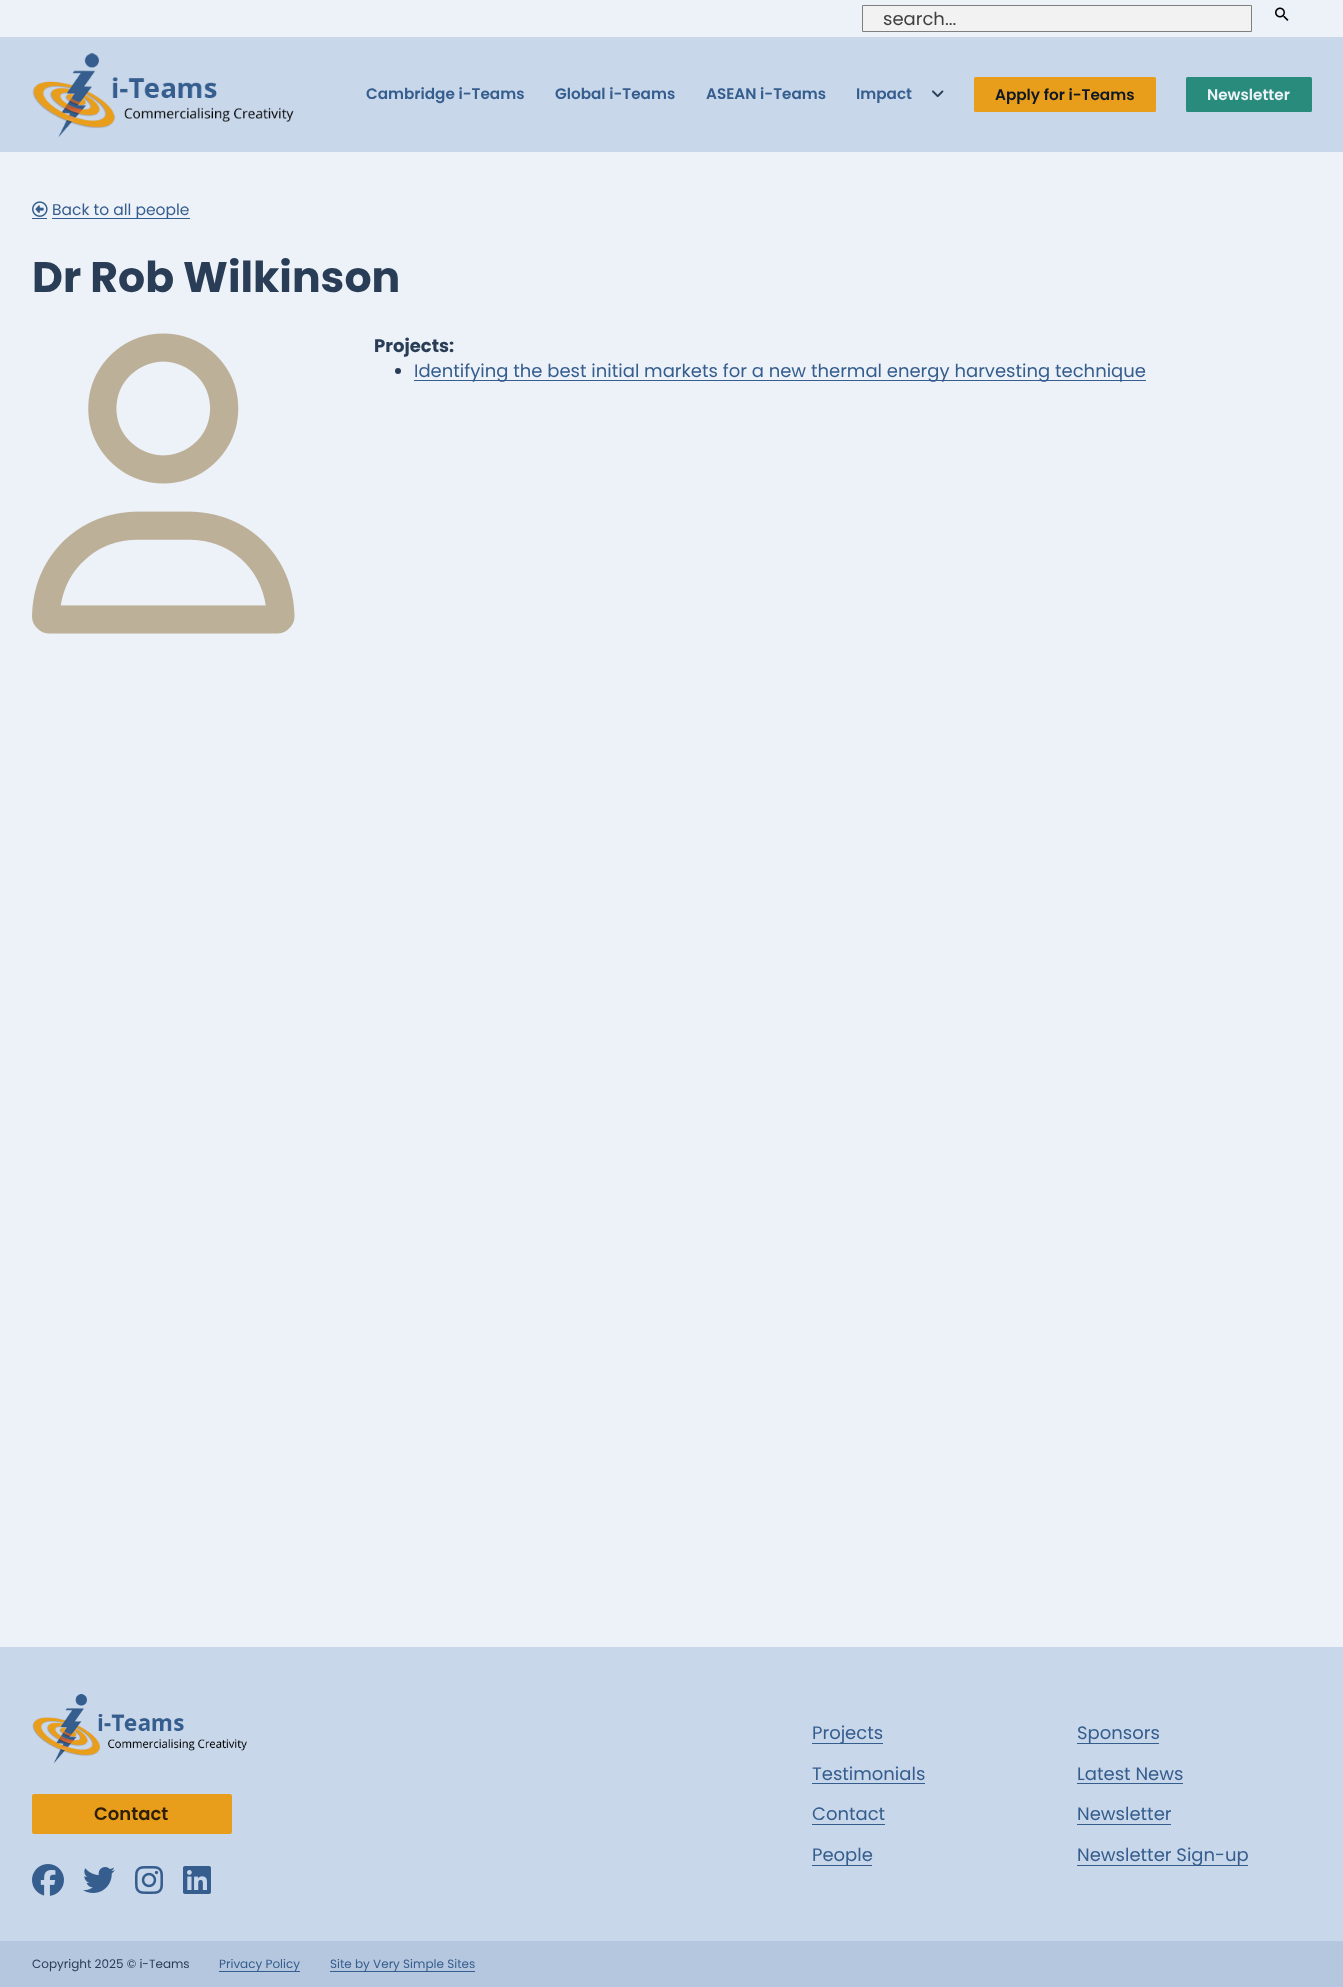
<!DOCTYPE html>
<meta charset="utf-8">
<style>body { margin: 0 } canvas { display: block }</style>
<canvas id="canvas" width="1343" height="1987"></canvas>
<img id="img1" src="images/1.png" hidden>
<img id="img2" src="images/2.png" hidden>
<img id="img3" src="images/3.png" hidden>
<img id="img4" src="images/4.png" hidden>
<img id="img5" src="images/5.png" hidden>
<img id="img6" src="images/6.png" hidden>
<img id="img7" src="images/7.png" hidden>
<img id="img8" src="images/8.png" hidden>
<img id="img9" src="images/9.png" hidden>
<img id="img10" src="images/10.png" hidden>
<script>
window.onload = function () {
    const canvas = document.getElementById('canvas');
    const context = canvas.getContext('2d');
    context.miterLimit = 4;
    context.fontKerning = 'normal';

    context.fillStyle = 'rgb(237, 242, 248)';
    context.fillRect(0, 0, 1343, 1987);
    context.fillStyle = 'rgb(242, 242, 242)';
    context.beginPath();
    context.rect(862.5, 5.5, 389, 26);
    context.fill();
    context.strokeStyle = 'rgb(128, 128, 128)';
    context.stroke();
    context.drawImage(document.getElementById('img1'), 1275, 7, 14, 14);
    context.fillStyle = 'rgb(200, 215, 234)';
    context.fillRect(0, 37, 1343, 115);
    context.drawImage(document.getElementById('img2'), 32, 53, 262, 84);
    context.drawImage(document.getElementById('img3'), 932, 90, 12, 8);
    context.fillStyle = 'rgb(233, 158, 27)';
    context.beginPath();
    context.roundRect(975, 78, 180, 33, 0.5);
    context.fill();
    context.strokeStyle = 'rgb(233, 158, 27)';
    context.lineWidth = 2;
    context.stroke();
    context.fillStyle = 'rgb(40, 139, 124)';
    context.beginPath();
    context.roundRect(1187, 78, 124, 33, 0.5);
    context.fill();
    context.strokeStyle = 'rgb(40, 139, 124)';
    context.stroke();
    context.drawImage(document.getElementById('img4'), 32, 201, 16, 16);
    context.fillStyle = 'rgb(53, 93, 141)';
    context.fillRect(32, 218, 15, 1);
    context.fillRect(52, 218, 138, 1);
    context.drawImage(document.getElementById('img5'), 32, 333, 263, 301);
    context.fillStyle = 'rgb(41, 61, 87)';
    context.beginPath();
    context.arc(398, 371, 3, 0, 2 * Math.PI);
    context.fill();
    context.fillStyle = 'rgb(53, 93, 141)';
    context.fillRect(414, 380, 732, 1);
    context.fillStyle = 'rgb(200, 215, 234)';
    context.fillRect(0, 1647, 1343, 294);
    context.drawImage(document.getElementById('img6'), 32, 1694, 215, 70);
    context.fillStyle = 'rgb(233, 158, 27)';
    context.beginPath();
    context.roundRect(33, 1795, 198, 38, 1);
    context.fill();
    context.strokeStyle = 'rgb(233, 158, 27)';
    context.stroke();
    context.drawImage(document.getElementById('img7'), 32, 1864, 32, 32);
    context.drawImage(document.getElementById('img8'), 83, 1867, 32, 26);
    context.drawImage(document.getElementById('img9'), 135, 1866, 28, 28);
    context.drawImage(document.getElementById('img10'), 183, 1866, 28, 28);
    context.fillStyle = 'rgb(53, 93, 141)';
    context.fillRect(812, 1743, 71, 1);
    context.fillRect(812, 1783, 113, 1);
    context.fillRect(812, 1824, 73, 1);
    context.fillRect(812, 1865, 60, 1);
    context.fillRect(1077, 1743, 82, 1);
    context.fillRect(1077, 1783, 106, 1);
    context.fillRect(1077, 1824, 94, 1);
    context.fillRect(1077, 1865, 171, 1);
    context.fillStyle = 'rgb(181, 199, 222)';
    context.fillRect(0, 1941, 1343, 46);
    context.fillStyle = 'rgb(53, 93, 141)';
    context.fillRect(219, 1971, 81, 1);
    context.fillRect(330, 1971, 145, 1);
    context.font = '18px Poppins';
    context.fillStyle = 'rgb(64, 64, 64)';
    context.fillText('search...', 883, 25);
    context.font = '600 15.25px Poppins';
    context.fillStyle = 'rgb(53, 93, 141)';
    context.fillText('Cambridge i-Teams', 366, 99);
    context.fillText('Global i-Teams', 555, 99);
    context.fillText('ASEAN i-Teams', 706, 99);
    context.fillText('Impact', 856, 99);
    context.fillStyle = 'rgb(14, 24, 37)';
    context.fillText('Apply for i-Teams', 995, 100);
    context.fillStyle = 'rgb(237, 242, 248)';
    context.fillText('Newsletter', 1207, 100);
    context.font = '15.5px Poppins';
    context.fillStyle = 'rgb(53, 93, 141)';
    context.fillText('Back to all people', 52, 215);
    context.font = 'bold 42.6px Poppins';
    context.fillStyle = 'rgb(41, 61, 87)';
    context.fillText('Dr Rob Wilkinson', 32, 292);
    context.font = 'bold 18px Poppins';
    context.fillText('Projects:', 374, 352);
    context.font = '18px Poppins';
    context.fillStyle = 'rgb(53, 93, 141)';
    context.fillText('Identifying the best initial markets for a new thermal energy harvesting technique', 414, 377);
    context.font = '600 18px Poppins';
    context.fillStyle = 'rgb(46, 31, 5)';
    context.fillText('Contact', 94, 1820);
    context.font = '18px Poppins';
    context.fillStyle = 'rgb(53, 93, 141)';
    context.fillText('Projects', 812, 1739);
    context.fillText('Testimonials', 812, 1780);
    context.fillText('Contact', 812, 1820);
    context.fillText('People', 812, 1861);
    context.fillText('Sponsors', 1077, 1739);
    context.fillText('Latest News', 1077, 1780);
    context.fillText('Newsletter', 1077, 1820);
    context.fillText('Newsletter Sign-up', 1077, 1861);
    context.font = '12px Poppins';
    context.fillStyle = 'rgb(41, 61, 87)';
    context.fillText('Copyright 2025 © i-Teams', 32, 1968);
    context.fillStyle = 'rgb(53, 93, 141)';
    context.fillText('Privacy Policy', 219, 1968);
    context.fillText('Site by Very Simple Sites', 330, 1968);
};
</script>
